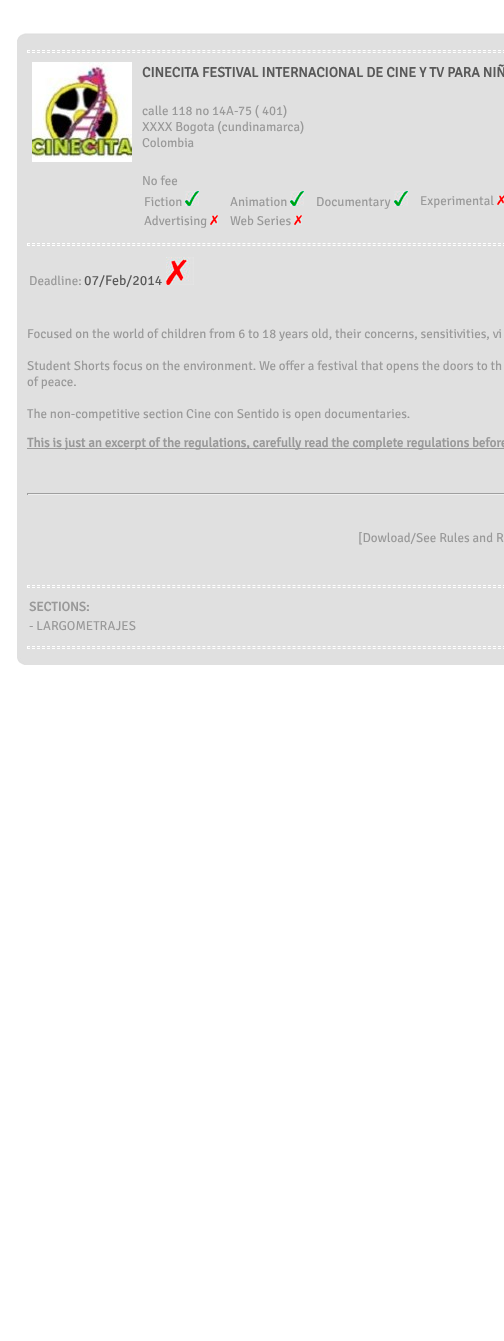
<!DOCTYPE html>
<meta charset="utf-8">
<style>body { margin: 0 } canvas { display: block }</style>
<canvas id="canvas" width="504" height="1341"></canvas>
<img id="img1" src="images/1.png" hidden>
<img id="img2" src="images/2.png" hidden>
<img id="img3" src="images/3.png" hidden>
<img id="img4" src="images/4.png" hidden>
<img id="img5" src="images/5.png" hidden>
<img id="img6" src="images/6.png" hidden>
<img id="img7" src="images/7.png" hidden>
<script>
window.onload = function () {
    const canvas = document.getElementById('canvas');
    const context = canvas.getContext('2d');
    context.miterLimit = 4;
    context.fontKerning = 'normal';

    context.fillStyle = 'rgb(255, 255, 255)';
    context.fillRect(0, 0, 504, 1341);
    context.fillStyle = 'rgb(224, 224, 224)';
    context.fillRect(17, 40, 487, 625);
    context.drawImage(document.getElementById('img1'), 17, 33, 487, 7);
    context.beginPath();
    context.moveTo(27, 50.5);
    context.lineTo(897, 50.5);
    context.strokeStyle = 'rgb(255, 255, 255)';
    context.setLineDash([3, 2.01]);
    context.stroke();
    context.beginPath();
    context.moveTo(27, 52.5);
    context.lineTo(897, 52.5);
    context.stroke();
    context.fillStyle = 'rgb(255, 255, 255)';
    context.fillRect(27, 50, 1, 3);
    context.drawImage(document.getElementById('img2'), 32, 62, 100, 100);
    context.drawImage(document.getElementById('img3'), 185, 191, 14, 15);
    context.drawImage(document.getElementById('img3'), 290, 191, 14, 15);
    context.drawImage(document.getElementById('img3'), 394, 191, 14, 15);
    context.drawImage(document.getElementById('img4'), 497, 195, 7, 10);
    context.drawImage(document.getElementById('img5'), 210, 215, 8, 10);
    context.drawImage(document.getElementById('img5'), 294, 215, 8, 10);
    context.beginPath();
    context.moveTo(27, 243.5);
    context.lineTo(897, 243.5);
    context.stroke();
    context.beginPath();
    context.moveTo(27, 245.5);
    context.lineTo(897, 245.5);
    context.stroke();
    context.fillRect(27, 243, 1, 3);
    context.drawImage(document.getElementById('img6'), 166, 257, 28, 28);
    context.fillStyle = 'rgb(153, 153, 153)';
    context.fillRect(27, 448, 477, 1);
    context.fillStyle = 'rgb(159, 159, 159)';
    context.fillRect(27, 493, 477, 1);
    context.fillStyle = 'rgb(238, 238, 238)';
    context.fillRect(27, 494, 477, 1);
    context.fillStyle = 'rgb(159, 159, 159)';
    context.fillRect(27, 493, 1, 2);
    context.beginPath();
    context.moveTo(27, 585.5);
    context.lineTo(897, 585.5);
    context.stroke();
    context.beginPath();
    context.moveTo(27, 587.5);
    context.lineTo(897, 587.5);
    context.stroke();
    context.fillStyle = 'rgb(255, 255, 255)';
    context.fillRect(27, 585, 1, 3);
    context.beginPath();
    context.moveTo(27, 646.5);
    context.lineTo(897, 646.5);
    context.stroke();
    context.beginPath();
    context.moveTo(27, 648.5);
    context.lineTo(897, 648.5);
    context.stroke();
    context.fillRect(27, 646, 1, 3);
    context.drawImage(document.getElementById('img7'), 17, 658, 7, 7);
    context.font = 'bold 14px Signika Negative';
    context.fillStyle = 'rgb(89, 89, 89)';
    context.fillText('CINECITA FESTIVAL INTERNACIONAL DE CINE Y TV PARA NIÑ', 142, 77);
    context.font = '300 13px Signika Negative';
    context.fillStyle = 'rgb(153, 153, 153)';
    context.fillText('calle 118 no 14A-75 ( 401)', 142, 115);
    context.fillText('XXXX Bogota (cundinamarca)', 142, 131);
    context.fillText('Colombia', 142, 147);
    context.fillText('No fee', 142, 185);
    context.fillText('Fiction', 144, 206);
    context.fillText('Animation', 230, 206);
    context.fillText('Documentary', 316, 206);
    context.fillText('Experimental', 420, 205);
    context.fillText('Advertising', 144, 225);
    context.fillText('Web Series', 230, 225);
    context.fillText('Deadline:', 29, 285);
    context.font = '300 14px Signika Negative';
    context.fillStyle = 'rgb(89, 89, 89)';
    context.fillText('07/Feb/2014', 84, 285);
    context.font = '300 13px Signika Negative';
    context.fillStyle = 'rgb(153, 153, 153)';
    context.fillText('Focused on the world of children from 6 to 18 years old, their concerns, sensitivities, vi', 27, 338);
    context.fillText('Student Shorts focus on the environment. We offer a festival that opens the doors to th', 27, 370);
    context.fillText('of peace.', 27, 386);
    context.fillText('The non-competitive section Cine con Sentido is open documentaries.', 27, 418);
    context.font = 'bold 13px Signika Negative';
    context.fillText('This is just an excerpt of the regulations, carefully read the complete regulations before', 27, 447);
    context.font = '300 13px Signika Negative';
    context.fillText('[Dowload/See Rules and R', 358, 542);
    context.font = 'bold 13px Signika Negative';
    context.fillText('SECTIONS:', 29, 611);
    context.font = '300 13px Signika Negative';
    context.fillText('- LARGOMETRAJES', 29, 630);
};
</script>
